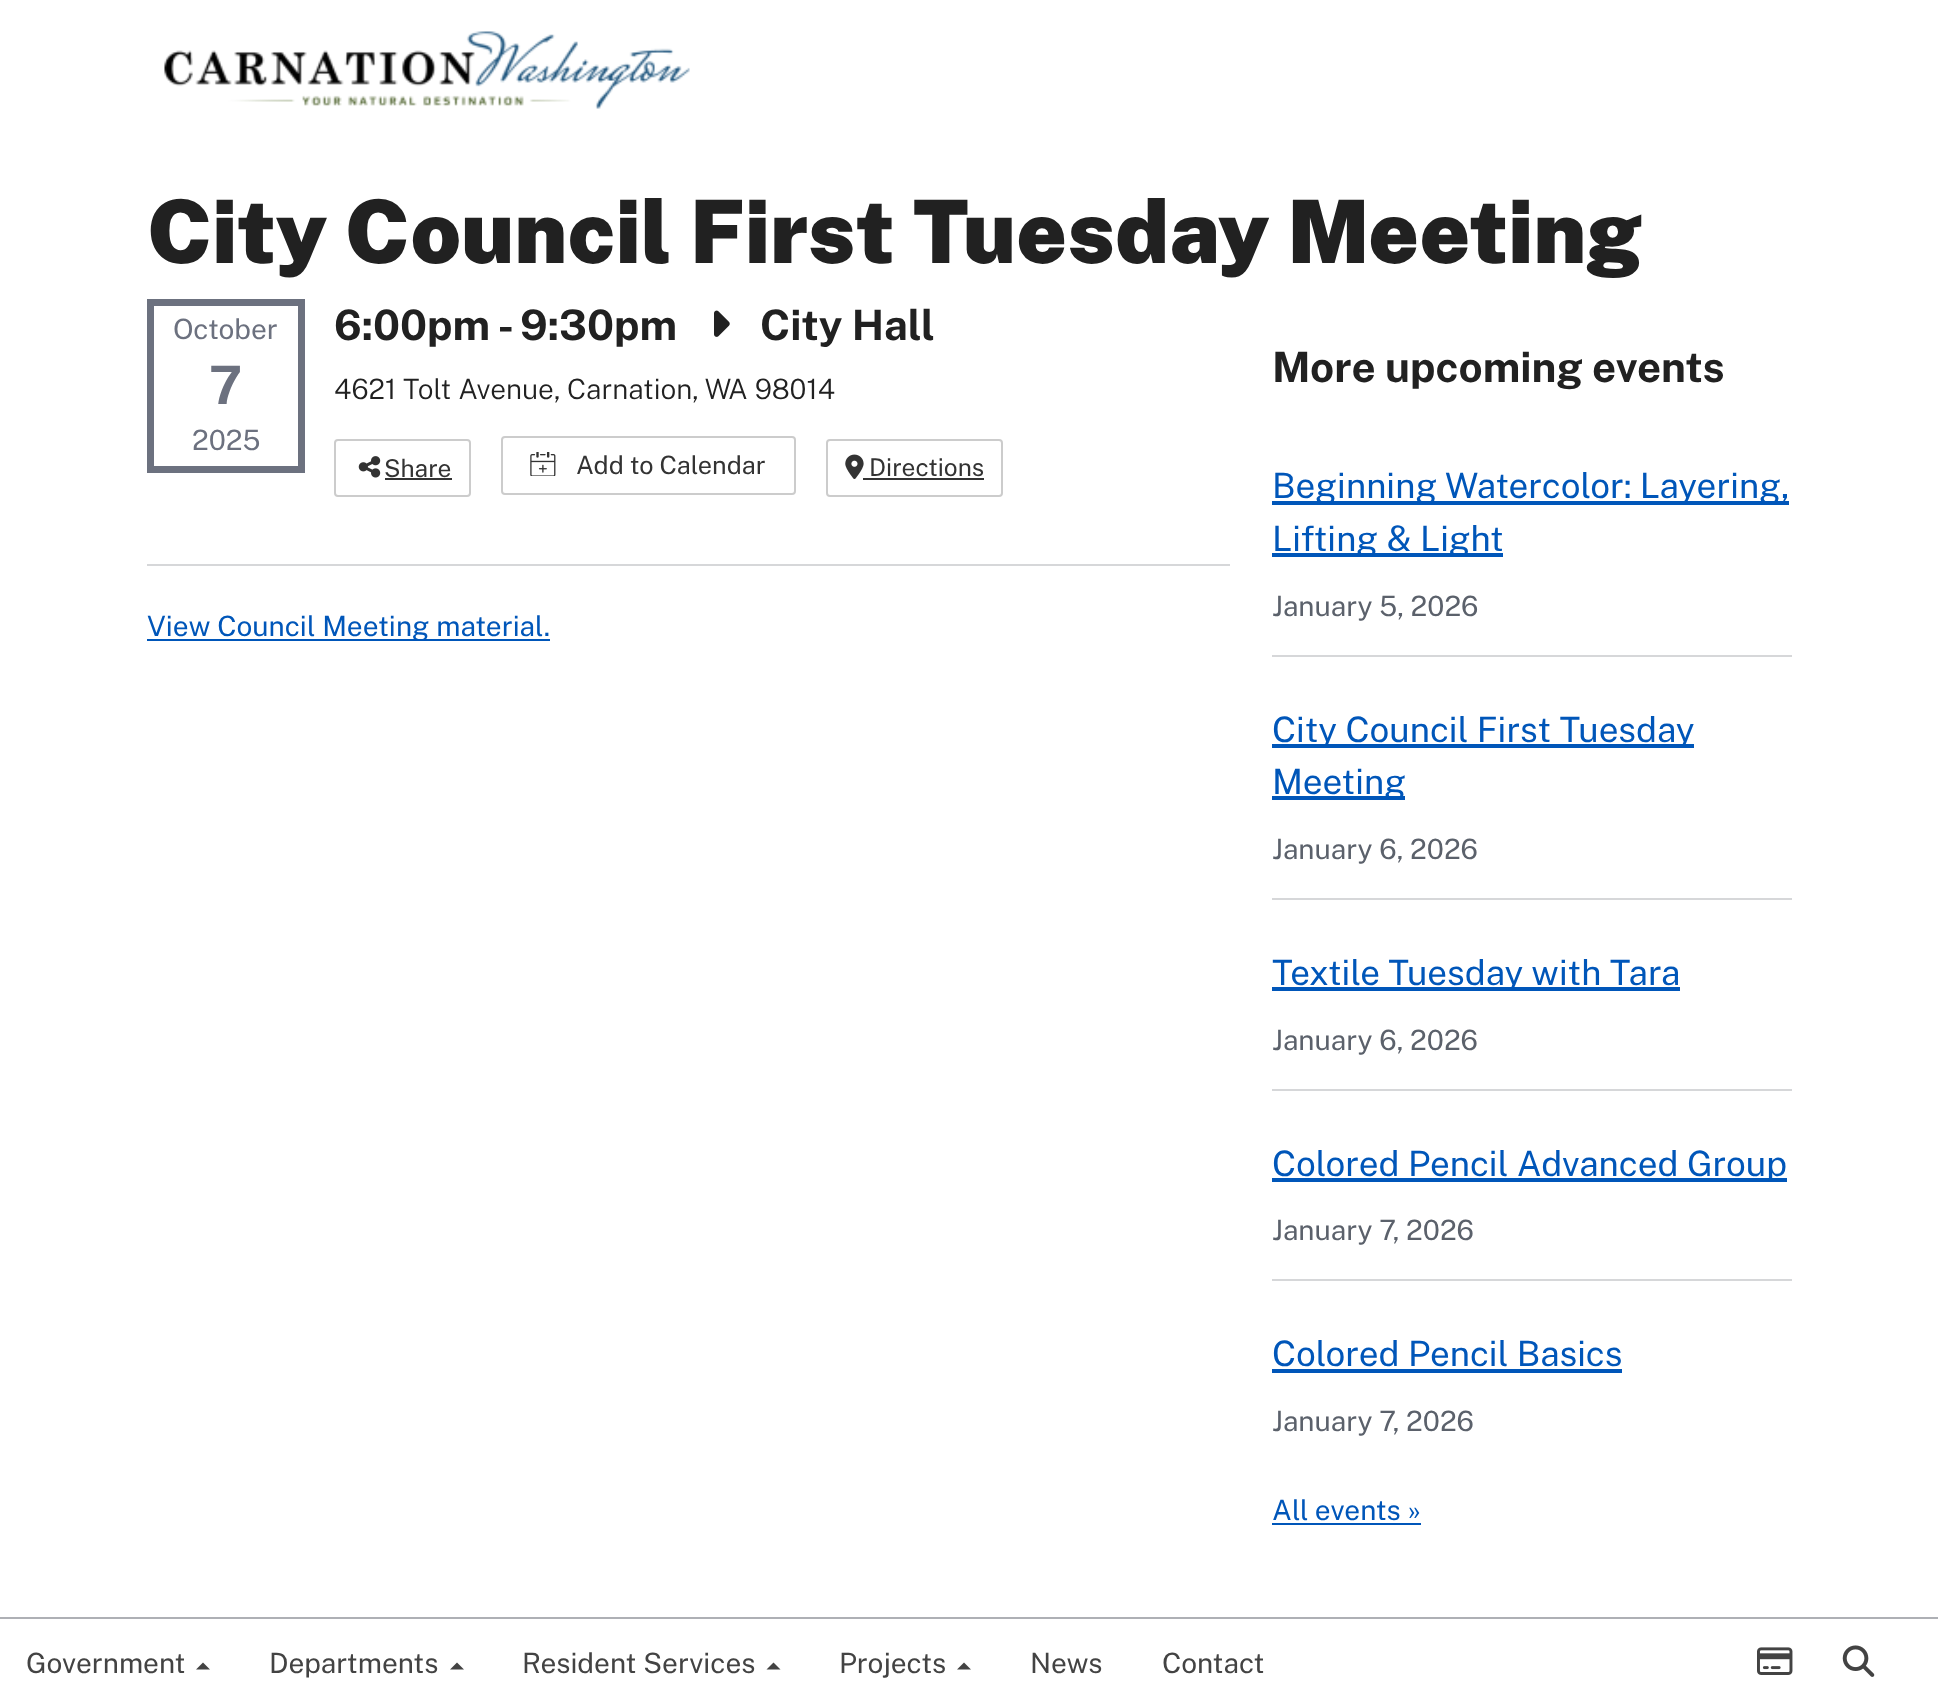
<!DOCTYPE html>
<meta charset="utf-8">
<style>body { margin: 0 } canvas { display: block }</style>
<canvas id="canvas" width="1938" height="1707"></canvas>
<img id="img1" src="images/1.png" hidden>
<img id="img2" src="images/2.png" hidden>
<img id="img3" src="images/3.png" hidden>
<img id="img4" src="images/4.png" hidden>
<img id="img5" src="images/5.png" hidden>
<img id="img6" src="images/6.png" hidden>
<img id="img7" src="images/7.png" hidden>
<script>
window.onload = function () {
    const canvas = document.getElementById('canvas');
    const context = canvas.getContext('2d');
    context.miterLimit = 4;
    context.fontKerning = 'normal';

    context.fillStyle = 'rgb(255, 255, 255)';
    context.fillRect(0, 0, 1938, 1707);
    context.strokeStyle = 'rgb(108, 113, 127)';
    context.lineWidth = 7;
    context.strokeRect(150.5, 302.5, 151, 167);
    context.drawImage(document.getElementById('img1'), 714, 310, 16, 27);
    context.beginPath();
    context.roundRect(335, 440, 135, 56, 3);
    context.strokeStyle = 'rgb(204, 204, 204)';
    context.lineWidth = 2;
    context.stroke();
    context.drawImage(document.getElementById('img2'), 358, 456, 23, 22);
    context.fillStyle = 'rgb(51, 51, 51)';
    context.fillRect(385, 478, 67, 2);
    context.beginPath();
    context.roundRect(502, 437, 293, 57, 3);
    context.stroke();
    context.drawImage(document.getElementById('img3'), 530, 452, 26, 24);
    context.beginPath();
    context.roundRect(827, 440, 175, 56, 3);
    context.stroke();
    context.drawImage(document.getElementById('img4'), 845, 454, 19, 25);
    context.fillRect(863, 478, 121, 2);
    context.fillStyle = 'rgb(214, 215, 217)';
    context.fillRect(147, 564, 1083, 2);
    context.fillStyle = 'rgb(0, 86, 185)';
    context.fillRect(147, 639, 403, 2);
    context.fillRect(1272, 501, 517, 4);
    context.fillRect(1272, 553, 231, 4);
    context.fillStyle = 'rgb(214, 215, 217)';
    context.fillRect(1272, 655, 520, 2);
    context.fillStyle = 'rgb(0, 86, 185)';
    context.fillRect(1272, 744, 422, 4);
    context.fillRect(1272, 796, 133, 4);
    context.fillStyle = 'rgb(214, 215, 217)';
    context.fillRect(1272, 898, 520, 2);
    context.fillStyle = 'rgb(0, 86, 185)';
    context.fillRect(1272, 987, 408, 4);
    context.fillStyle = 'rgb(214, 215, 217)';
    context.fillRect(1272, 1089, 520, 2);
    context.fillStyle = 'rgb(0, 86, 185)';
    context.fillRect(1272, 1178, 515, 4);
    context.fillStyle = 'rgb(214, 215, 217)';
    context.fillRect(1272, 1279, 520, 2);
    context.fillStyle = 'rgb(0, 86, 185)';
    context.fillRect(1272, 1369, 350, 4);
    context.fillRect(1272, 1523, 149, 2);
    context.drawImage(document.getElementById('img5'), 164, 31, 526, 78);
    context.fillStyle = 'rgb(174, 176, 181)';
    context.fillRect(0, 1617, 1938, 2);
    context.fillStyle = 'rgb(67, 67, 67)';
    context.beginPath();
    context.moveTo(210, 1669.5);
    context.lineTo(196, 1669.5);
    context.lineTo(203, 1662.5);
    context.closePath();
    context.fill();
    context.beginPath();
    context.moveTo(464, 1669.5);
    context.lineTo(450, 1669.5);
    context.lineTo(457, 1662.5);
    context.closePath();
    context.fill();
    context.beginPath();
    context.moveTo(780.5, 1669.5);
    context.lineTo(766.5, 1669.5);
    context.lineTo(773.5, 1662.5);
    context.closePath();
    context.fill();
    context.beginPath();
    context.moveTo(971, 1669.5);
    context.lineTo(957, 1669.5);
    context.lineTo(964, 1662.5);
    context.closePath();
    context.fill();
    context.drawImage(document.getElementById('img6'), 1757, 1647, 36, 28);
    context.drawImage(document.getElementById('img7'), 1842, 1645, 33, 32);
    context.font = '900 87.5px Public Sans';
    context.fillStyle = 'rgb(33, 33, 33)';
    context.fillText('City Council First Tuesday Meeting', 147, 263);
    context.font = '28px Public Sans';
    context.fillStyle = 'rgb(108, 113, 127)';
    context.fillText('October', 173, 339);
    context.font = 'bold 53px Public Sans';
    context.fillText('7', 209, 404);
    context.font = '28px Public Sans';
    context.fillText('2025', 192, 450);
    context.font = 'bold 42px Public Sans';
    context.fillStyle = 'rgb(33, 33, 33)';
    context.fillText('6:00pm - 9:30pm', 334, 340);
    context.fillText('City Hall', 760, 340);
    context.font = '300 28px Public Sans';
    context.fillText('4621 Tolt Avenue, Carnation, WA 98014', 334, 399);
    context.font = '24.5px Public Sans';
    context.fillStyle = 'rgb(51, 51, 51)';
    context.fillText('Share', 384, 477);
    context.font = '25.25px "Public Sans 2"';
    context.fillText('Add to Calendar', 576, 474);
    context.font = '24.5px Public Sans';
    context.fillText('Directions', 869, 476);
    context.font = '28px Public Sans';
    context.fillStyle = 'rgb(0, 86, 185)';
    context.fillText('View Council Meeting material.', 147, 636);
    context.font = 'bold 42px Public Sans';
    context.fillStyle = 'rgb(33, 33, 33)';
    context.fillText('More upcoming events', 1272, 382);
    context.font = '35px Public Sans';
    context.fillStyle = 'rgb(0, 86, 185)';
    context.fillText('Beginning Watercolor: Layering,', 1272, 498);
    context.fillText('Lifting & Light', 1272, 551);
    context.font = '28px Public Sans';
    context.fillStyle = 'rgb(91, 97, 107)';
    context.fillText('January 5, 2026', 1272, 616);
    context.font = '35px Public Sans';
    context.fillStyle = 'rgb(0, 86, 185)';
    context.fillText('City Council First Tuesday', 1272, 742);
    context.fillText('Meeting', 1272, 794);
    context.font = '28px Public Sans';
    context.fillStyle = 'rgb(91, 97, 107)';
    context.fillText('January 6, 2026', 1272, 859);
    context.font = '35px Public Sans';
    context.fillStyle = 'rgb(0, 86, 185)';
    context.fillText('Textile Tuesday with Tara', 1272, 985);
    context.font = '28px Public Sans';
    context.fillStyle = 'rgb(91, 97, 107)';
    context.fillText('January 6, 2026', 1272, 1050);
    context.font = '35px Public Sans';
    context.fillStyle = 'rgb(0, 86, 185)';
    context.fillText('Colored Pencil Advanced Group', 1272, 1176);
    context.font = '28px Public Sans';
    context.fillStyle = 'rgb(91, 97, 107)';
    context.fillText('January 7, 2026', 1272, 1240);
    context.font = '35px Public Sans';
    context.fillStyle = 'rgb(0, 86, 185)';
    context.fillText('Colored Pencil Basics', 1272, 1366);
    context.font = '28px Public Sans';
    context.fillStyle = 'rgb(91, 97, 107)';
    context.fillText('January 7, 2026', 1272, 1431);
    context.fillStyle = 'rgb(0, 86, 185)';
    context.fillText('All events »', 1272, 1520);
    context.fillStyle = 'rgb(67, 67, 67)';
    context.fillText('Government', 26, 1673);
    context.fillText('Departments', 269, 1673);
    context.fillText('Resident Services', 522, 1673);
    context.fillText('Projects', 839, 1673);
    context.fillText('News', 1030, 1673);
    context.fillText('Contact', 1162, 1673);
};
</script>
